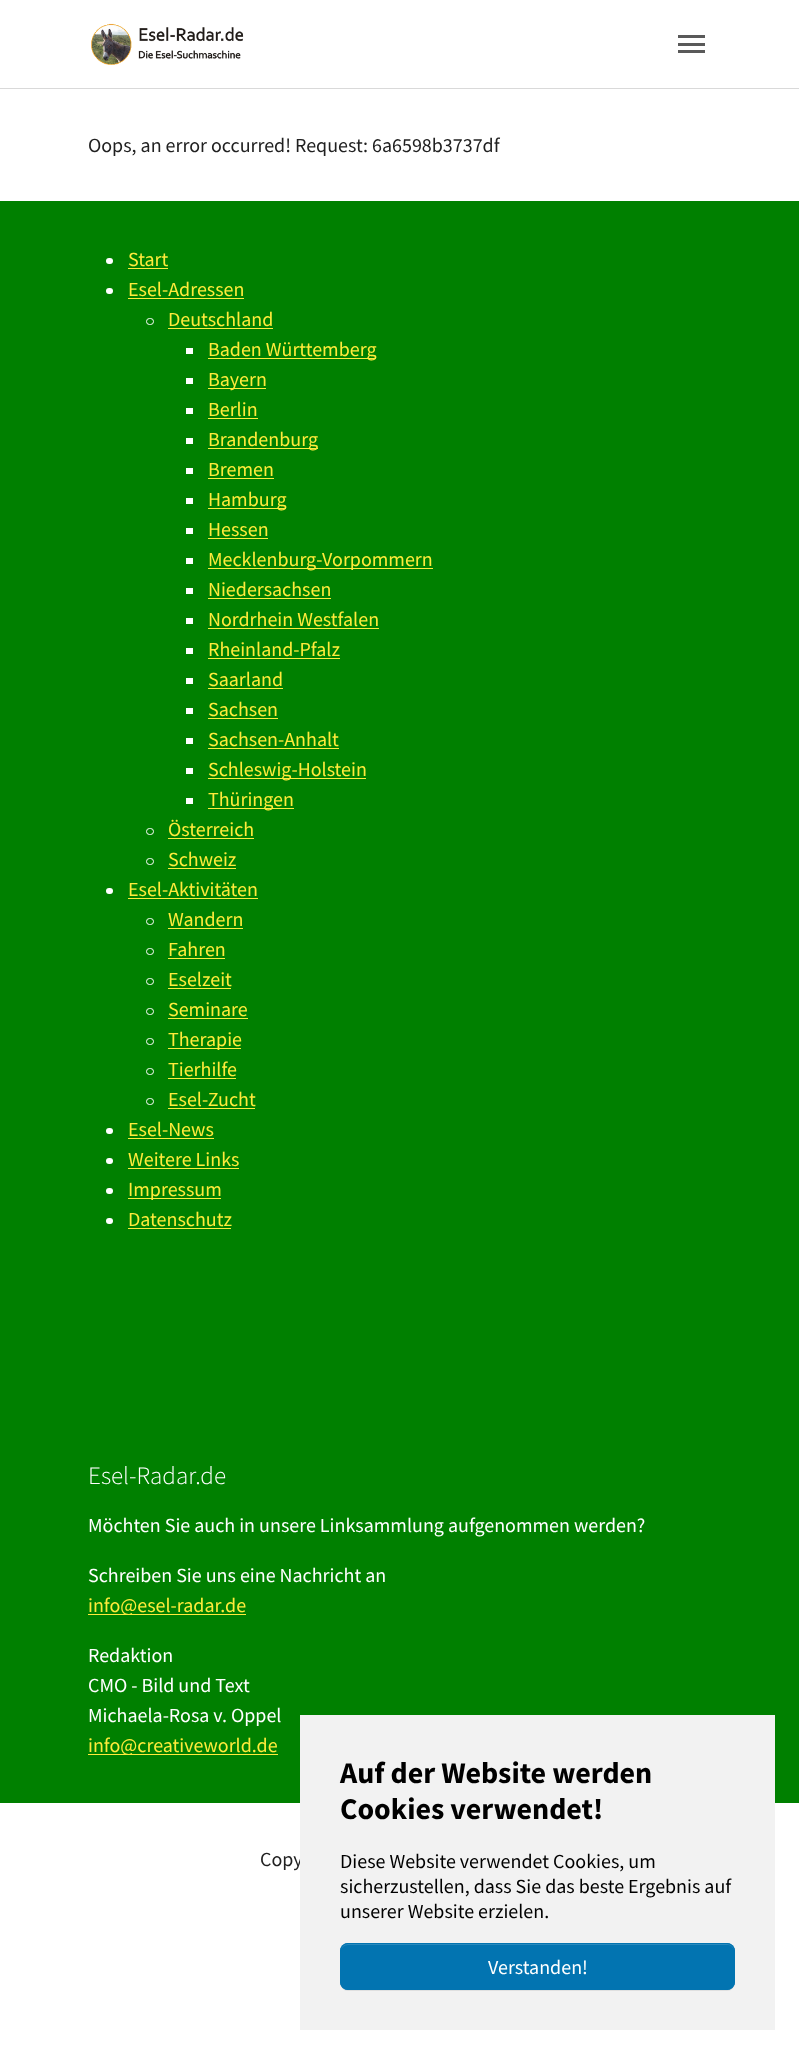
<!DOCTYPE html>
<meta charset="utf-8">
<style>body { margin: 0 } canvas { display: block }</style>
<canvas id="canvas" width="799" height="2054"></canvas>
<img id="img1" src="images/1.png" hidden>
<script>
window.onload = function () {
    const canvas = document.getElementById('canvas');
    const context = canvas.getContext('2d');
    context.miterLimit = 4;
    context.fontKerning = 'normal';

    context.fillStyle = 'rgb(255, 255, 255)';
    context.fillRect(0, 0, 799, 2054);
    context.fillStyle = 'rgb(217, 217, 217)';
    context.fillRect(0, 88, 799, 1);
    context.drawImage(document.getElementById('img1'), 91, 23, 153, 42);
    context.fillStyle = 'rgb(89, 89, 89)';
    context.fillRect(678, 43, 27, 3);
    context.fillRect(678, 35, 27, 3);
    context.fillRect(678, 50, 27, 3);
    context.fillStyle = 'rgb(0, 128, 0)';
    context.fillRect(0, 201, 799, 1602);
    context.fillStyle = 'rgb(255, 255, 255)';
    context.beginPath();
    context.roundRect(106, 258, 7, 6, 3);
    context.fill();
    context.fillStyle = 'rgb(255, 235, 59)';
    context.fillRect(128, 268, 40, 1);
    context.fillStyle = 'rgb(255, 255, 255)';
    context.beginPath();
    context.roundRect(106, 288, 7, 6, 3);
    context.fill();
    context.fillStyle = 'rgb(255, 235, 59)';
    context.fillRect(128, 298, 116, 1);
    context.beginPath();
    context.roundRect(146.5, 318.5, 7, 6, 3);
    context.strokeStyle = 'rgb(255, 255, 255)';
    context.stroke();
    context.fillRect(168, 328, 105, 1);
    context.fillStyle = 'rgb(255, 255, 255)';
    context.fillRect(186, 348, 7, 6);
    context.fillStyle = 'rgb(255, 235, 59)';
    context.fillRect(208, 358, 168, 1);
    context.fillStyle = 'rgb(255, 255, 255)';
    context.fillRect(186, 378, 7, 6);
    context.fillStyle = 'rgb(255, 235, 59)';
    context.fillRect(208, 388, 58, 1);
    context.fillStyle = 'rgb(255, 255, 255)';
    context.fillRect(186, 408, 7, 6);
    context.fillStyle = 'rgb(255, 235, 59)';
    context.fillRect(208, 418, 50, 1);
    context.fillStyle = 'rgb(255, 255, 255)';
    context.fillRect(186, 438, 7, 6);
    context.fillStyle = 'rgb(255, 235, 59)';
    context.fillRect(208, 448, 110, 1);
    context.fillStyle = 'rgb(255, 255, 255)';
    context.fillRect(186, 468, 7, 6);
    context.fillStyle = 'rgb(255, 235, 59)';
    context.fillRect(208, 478, 66, 1);
    context.fillStyle = 'rgb(255, 255, 255)';
    context.fillRect(186, 498, 7, 6);
    context.fillStyle = 'rgb(255, 235, 59)';
    context.fillRect(208, 508, 78, 1);
    context.fillStyle = 'rgb(255, 255, 255)';
    context.fillRect(186, 528, 7, 6);
    context.fillStyle = 'rgb(255, 235, 59)';
    context.fillRect(208, 538, 60, 1);
    context.fillStyle = 'rgb(255, 255, 255)';
    context.fillRect(186, 558, 7, 6);
    context.fillStyle = 'rgb(255, 235, 59)';
    context.fillRect(208, 568, 225, 1);
    context.fillStyle = 'rgb(255, 255, 255)';
    context.fillRect(186, 588, 7, 6);
    context.fillStyle = 'rgb(255, 235, 59)';
    context.fillRect(208, 598, 123, 1);
    context.fillStyle = 'rgb(255, 255, 255)';
    context.fillRect(186, 618, 7, 6);
    context.fillStyle = 'rgb(255, 235, 59)';
    context.fillRect(208, 628, 171, 1);
    context.fillStyle = 'rgb(255, 255, 255)';
    context.fillRect(186, 648, 7, 6);
    context.fillStyle = 'rgb(255, 235, 59)';
    context.fillRect(208, 658, 132, 1);
    context.fillStyle = 'rgb(255, 255, 255)';
    context.fillRect(186, 678, 7, 6);
    context.fillStyle = 'rgb(255, 235, 59)';
    context.fillRect(208, 688, 75, 1);
    context.fillStyle = 'rgb(255, 255, 255)';
    context.fillRect(186, 708, 7, 6);
    context.fillStyle = 'rgb(255, 235, 59)';
    context.fillRect(208, 718, 70, 1);
    context.fillStyle = 'rgb(255, 255, 255)';
    context.fillRect(186, 738, 7, 6);
    context.fillStyle = 'rgb(255, 235, 59)';
    context.fillRect(208, 748, 131, 1);
    context.fillStyle = 'rgb(255, 255, 255)';
    context.fillRect(186, 768, 7, 6);
    context.fillStyle = 'rgb(255, 235, 59)';
    context.fillRect(208, 778, 158, 1);
    context.fillStyle = 'rgb(255, 255, 255)';
    context.fillRect(186, 798, 7, 6);
    context.fillStyle = 'rgb(255, 235, 59)';
    context.fillRect(208, 808, 86, 1);
    context.beginPath();
    context.roundRect(146.5, 828.5, 7, 6, 3);
    context.stroke();
    context.fillRect(168, 838, 86, 1);
    context.beginPath();
    context.roundRect(146.5, 858.5, 7, 6, 3);
    context.stroke();
    context.fillRect(168, 868, 68, 1);
    context.fillStyle = 'rgb(255, 255, 255)';
    context.beginPath();
    context.roundRect(106, 888, 7, 6, 3);
    context.fill();
    context.fillStyle = 'rgb(255, 235, 59)';
    context.fillRect(128, 898, 130, 1);
    context.beginPath();
    context.roundRect(146.5, 918.5, 7, 6, 3);
    context.stroke();
    context.fillRect(168, 928, 75, 1);
    context.beginPath();
    context.roundRect(146.5, 948.5, 7, 6, 3);
    context.stroke();
    context.fillRect(168, 958, 57, 1);
    context.beginPath();
    context.roundRect(146.5, 978.5, 7, 6, 3);
    context.stroke();
    context.fillRect(168, 988, 63, 1);
    context.beginPath();
    context.roundRect(146.5, 1008.5, 7, 6, 3);
    context.stroke();
    context.fillRect(168, 1018, 80, 1);
    context.beginPath();
    context.roundRect(146.5, 1038.5, 7, 6, 3);
    context.stroke();
    context.fillRect(168, 1048, 73, 1);
    context.beginPath();
    context.roundRect(146.5, 1068.5, 7, 6, 3);
    context.stroke();
    context.fillRect(168, 1078, 68, 1);
    context.beginPath();
    context.roundRect(146.5, 1098.5, 7, 6, 3);
    context.stroke();
    context.fillRect(168, 1108, 87, 1);
    context.fillStyle = 'rgb(255, 255, 255)';
    context.beginPath();
    context.roundRect(106, 1128, 7, 6, 3);
    context.fill();
    context.fillStyle = 'rgb(255, 235, 59)';
    context.fillRect(128, 1138, 86, 1);
    context.fillStyle = 'rgb(255, 255, 255)';
    context.beginPath();
    context.roundRect(106, 1158, 7, 6, 3);
    context.fill();
    context.fillStyle = 'rgb(255, 235, 59)';
    context.fillRect(128, 1168, 111, 1);
    context.fillStyle = 'rgb(255, 255, 255)';
    context.beginPath();
    context.roundRect(106, 1188, 7, 6, 3);
    context.fill();
    context.fillStyle = 'rgb(255, 235, 59)';
    context.fillRect(128, 1198, 93, 1);
    context.fillStyle = 'rgb(255, 255, 255)';
    context.beginPath();
    context.roundRect(106, 1218, 7, 6, 3);
    context.fill();
    context.fillStyle = 'rgb(255, 235, 59)';
    context.fillRect(128, 1228, 103, 1);
    context.fillRect(88, 1614, 158, 1);
    context.fillRect(88, 1754, 190, 1);
    context.font = '20px Source Sans Pro';
    context.fillStyle = 'rgb(33, 33, 33)';
    context.fillText('Oops, an error occurred! Request: 6a6598b3737df', 88, 152);
    context.fillStyle = 'rgb(255, 235, 59)';
    context.fillText('Start', 128, 266);
    context.fillText('Esel-Adressen', 128, 296);
    context.fillText('Deutschland', 168, 326);
    context.fillText('Baden Württemberg', 208, 356);
    context.fillText('Bayern', 208, 386);
    context.fillText('Berlin', 208, 416);
    context.fillText('Brandenburg', 208, 446);
    context.fillText('Bremen', 208, 476);
    context.fillText('Hamburg', 208, 506);
    context.fillText('Hessen', 208, 536);
    context.fillText('Mecklenburg-Vorpommern', 208, 566);
    context.fillText('Niedersachsen', 208, 596);
    context.fillText('Nordrhein Westfalen', 208, 626);
    context.fillText('Rheinland-Pfalz', 208, 656);
    context.fillText('Saarland', 208, 686);
    context.fillText('Sachsen', 208, 716);
    context.fillText('Sachsen-Anhalt', 208, 746);
    context.fillText('Schleswig-Holstein', 208, 776);
    context.fillText('Thüringen', 208, 806);
    context.fillText('Österreich', 168, 836);
    context.fillText('Schweiz', 168, 866);
    context.fillText('Esel-Aktivitäten', 128, 896);
    context.fillText('Wandern', 168, 926);
    context.fillText('Fahren', 168, 956);
    context.fillText('Eselzeit', 168, 986);
    context.fillText('Seminare', 168, 1016);
    context.fillText('Therapie', 168, 1046);
    context.fillText('Tierhilfe', 168, 1076);
    context.fillText('Esel-Zucht', 168, 1106);
    context.fillText('Esel-News', 128, 1136);
    context.fillText('Weitere Links', 128, 1166);
    context.fillText('Impressum', 128, 1196);
    context.fillText('Datenschutz', 128, 1226);
    context.font = '300 25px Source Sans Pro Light';
    context.fillStyle = 'rgb(255, 255, 255)';
    context.fillText('Esel-Radar.de', 88, 1484);
    context.font = '20px Source Sans Pro';
    context.fillText('Möchten Sie auch in unsere Linksammlung aufgenommen werden?', 88, 1532);
    context.fillText('Schreiben Sie uns eine Nachricht an', 88, 1582);
    context.fillStyle = 'rgb(255, 235, 59)';
    context.fillText('info@esel-radar.de', 88, 1612);
    context.fillStyle = 'rgb(255, 255, 255)';
    context.fillText('Redaktion', 88, 1662);
    context.fillText('CMO - Bild und Text', 88, 1692);
    context.fillText('Michaela-Rosa v. Oppel', 88, 1722);
    context.fillStyle = 'rgb(255, 235, 59)';
    context.fillText('info@creativeworld.de', 88, 1752);
    context.fillStyle = 'rgb(33, 33, 33)';
    context.fillText('Copy', 260, 1866);
    context.fillStyle = 'rgb(242, 242, 242)';
    context.fillRect(300, 1715, 475, 315);
    context.font = 'bold 30px Source Sans Pro';
    context.fillStyle = 'rgb(0, 0, 0)';
    context.fillText('Auf der Website werden', 340, 1783);
    context.fillText('Cookies verwendet!', 340, 1819);
    context.font = '20px Source Sans Pro';
    context.fillText('Diese Website verwendet Cookies, um', 340, 1868);
    context.fillText('sicherzustellen, dass Sie das beste Ergebnis auf', 340, 1893);
    context.fillText('unserer Website erzielen.', 340, 1918);
    context.fillStyle = 'rgba(0, 0, 0, 0.07)';
    context.filter = 'blur(0.5px)';
    context.beginPath();
    context.roundRect(340, 1944, 395, 47, 8);
    context.fill();
    context.filter = 'none';
    context.fillStyle = 'rgb(2, 116, 177)';
    context.beginPath();
    context.roundRect(340, 1943, 395, 47, 8);
    context.fill();
    context.fillStyle = 'rgb(40, 137, 189)';
    context.beginPath();
    context.moveTo(348, 1945);
    context.lineTo(728, 1945);
    context.bezierCurveTo(731, 1945, 734, 1948, 734, 1951);
    context.bezierCurveTo(734, 1947, 732, 1944, 728, 1944);
    context.lineTo(347, 1944);
    context.bezierCurveTo(343, 1944, 341, 1947, 341, 1951);
    context.bezierCurveTo(341, 1948, 344, 1945, 348, 1945);
    context.closePath();
    context.fill();
    context.beginPath();
    context.roundRect(340.5, 1943.5, 394, 46, 7.5);
    context.strokeStyle = 'rgb(2, 116, 177)';
    context.stroke();
    context.fillStyle = 'rgb(255, 255, 255)';
    context.fillText('Verstanden!', 488, 1974);
};
</script>
